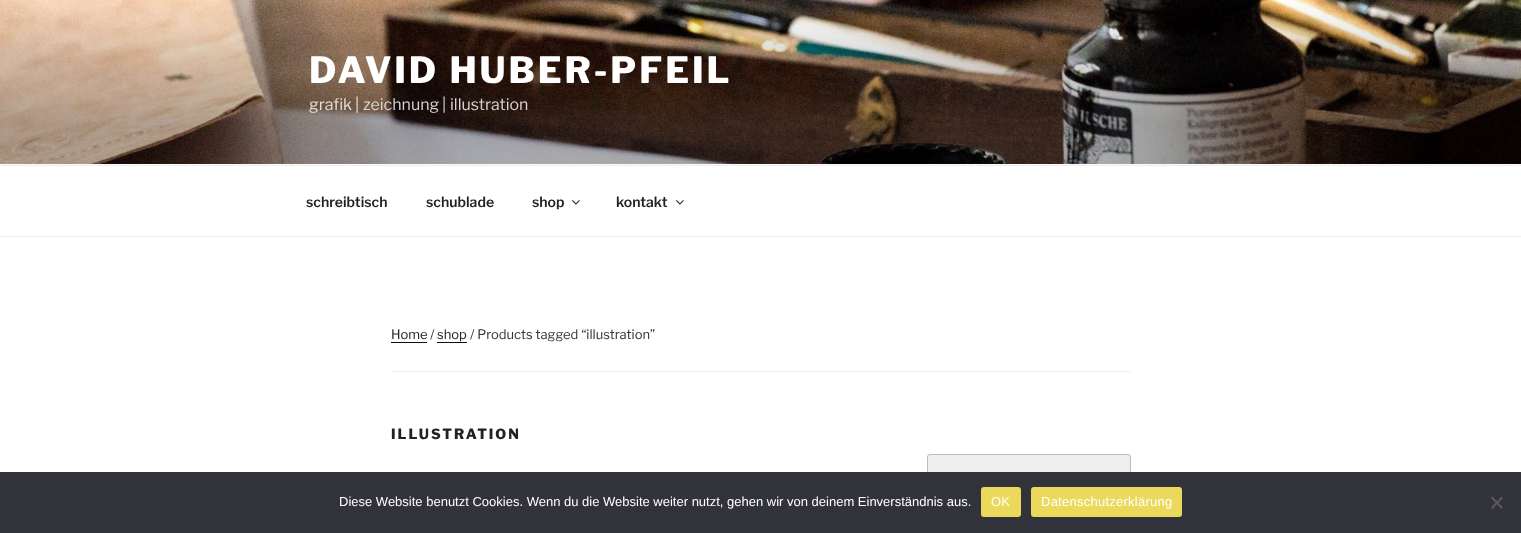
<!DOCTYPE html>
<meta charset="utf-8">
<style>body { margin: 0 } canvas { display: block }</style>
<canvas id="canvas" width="1521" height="533"></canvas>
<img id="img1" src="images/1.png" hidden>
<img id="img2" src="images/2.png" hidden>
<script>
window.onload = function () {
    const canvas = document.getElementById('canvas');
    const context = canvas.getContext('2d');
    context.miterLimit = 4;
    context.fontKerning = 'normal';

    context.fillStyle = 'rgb(255, 255, 255)';
    context.fillRect(0, 0, 1521, 533);
    context.fillStyle = 'rgb(250, 250, 250)';
    context.fillRect(0, 164, 1521, 1);
    context.drawImage(document.getElementById('img1'), 0, 0, 1521, 164);
    context.fillStyle = 'rgb(238, 238, 238)';
    context.fillRect(0, 165, 1521, 1);
    context.fillRect(0, 236, 1521, 1);
    context.drawImage(document.getElementById('img2'), 572, 200, 8, 5);
    context.drawImage(document.getElementById('img2'), 676, 200, 8, 5);
    context.fillRect(391, 371, 740, 1);
    context.fillStyle = 'rgb(15, 15, 15)';
    context.fillRect(391, 342, 36, 1);
    context.fillRect(437, 342, 30, 1);
    context.fillStyle = 'rgb(239, 239, 239)';
    context.beginPath();
    context.roundRect(927.5, 454.5, 203, 47, 2.5);
    context.fill();
    context.strokeStyle = 'rgb(187, 187, 187)';
    context.stroke();
    context.fillStyle = 'rgb(50, 50, 58)';
    context.fillRect(0, 472, 1521, 61);
    context.fillStyle = 'rgb(234, 217, 91)';
    context.beginPath();
    context.roundRect(981, 487, 40, 30, 3);
    context.fill();
    context.beginPath();
    context.roundRect(1031, 487, 151, 30, 3);
    context.fill();
    context.fillStyle = 'rgb(89, 89, 93)';
    context.beginPath();
    context.moveTo(1501.5, 496.5);
    context.lineTo(1503, 498);
    context.lineTo(1492.5, 509);
    context.lineTo(1491, 507.5);
    context.closePath();
    context.fill();
    context.beginPath();
    context.moveTo(1491, 498);
    context.lineTo(1492.5, 496.5);
    context.lineTo(1503, 507.5);
    context.lineTo(1501.5, 509);
    context.closePath();
    context.fill();
    context.letterSpacing = '2.9px';
    context.font = '100 36px "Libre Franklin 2"';
    context.fillStyle = 'rgb(255, 255, 255)';
    context.fillText('DAVID HUBER-PFEIL', 309, 83);
    context.letterSpacing = '0px';
    context.font = '100 16px Libre Franklin';
    context.fillStyle = 'rgb(226, 222, 218)';
    context.fillText('grafik', 309, 110);
    context.fillText('|', 355, 110);
    context.fillStyle = 'rgb(215, 212, 210)';
    context.fillText('zeichnung', 363, 110);
    context.fillText('|', 442, 110);
    context.fillText('illustration', 450, 110);
    context.font = '100 14px "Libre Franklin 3"';
    context.fillStyle = 'rgb(34, 34, 34)';
    context.fillText('schreibtisch', 306, 207);
    context.fillText('schublade', 426, 207);
    context.fillText('shop', 532, 207);
    context.fillText('kontakt', 616, 207);
    context.font = '100 13px Libre Franklin';
    context.fillText('Home', 391, 339);
    context.fillStyle = 'rgb(51, 51, 51)';
    context.fillText('/', 430, 339);
    context.fillStyle = 'rgb(34, 34, 34)';
    context.fillText('shop', 437, 339);
    context.fillStyle = 'rgb(51, 51, 51)';
    context.fillText('/ Products tagged “illustration”', 470, 339);
    context.letterSpacing = '2px';
    context.font = '100 14px "Libre Franklin 2"';
    context.fillStyle = 'rgb(34, 34, 34)';
    context.fillText('ILLUSTRATION', 391, 439);
    context.letterSpacing = '0px';
    context.font = '13px Liberation Sans';
    context.fillStyle = 'rgb(255, 255, 255)';
    context.fillText('Diese Website benutzt Cookies. Wenn du die Website weiter nutzt, gehen wir von deinem Einverständnis aus.', 339, 506);
    context.letterSpacing = '0.25px';
    context.fillText('OK', 991, 506);
    context.fillText('Datenschutzerklärung', 1041, 506);
};
</script>
